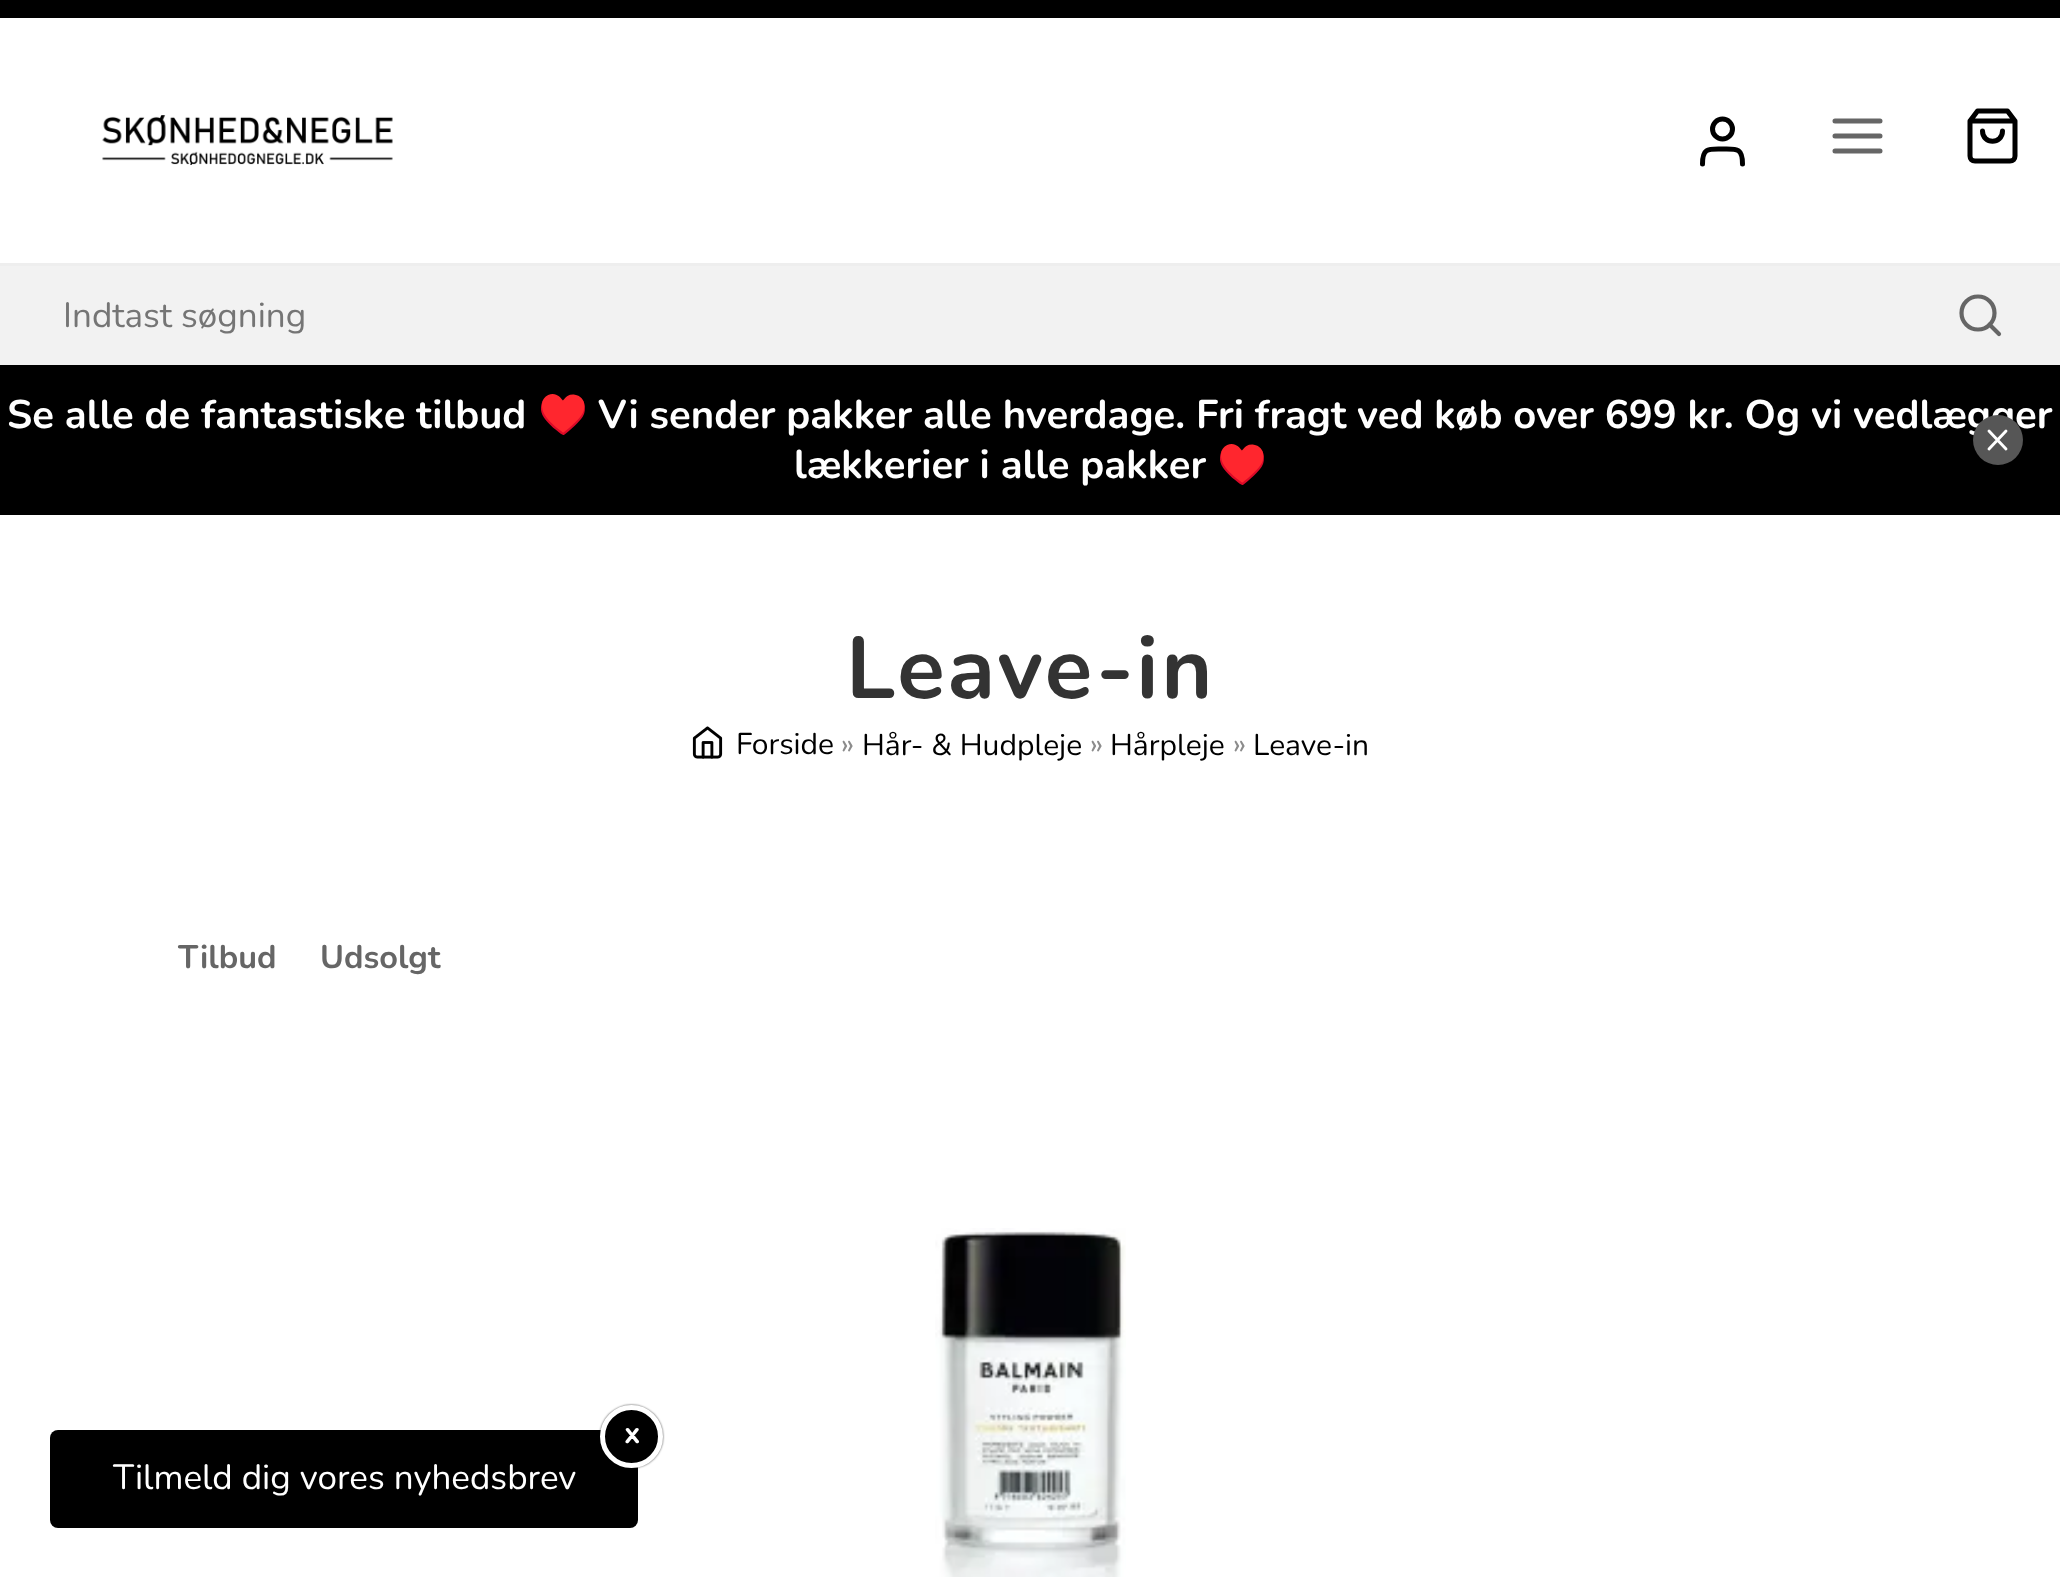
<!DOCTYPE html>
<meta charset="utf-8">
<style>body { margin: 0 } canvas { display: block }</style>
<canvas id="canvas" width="2060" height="1577"></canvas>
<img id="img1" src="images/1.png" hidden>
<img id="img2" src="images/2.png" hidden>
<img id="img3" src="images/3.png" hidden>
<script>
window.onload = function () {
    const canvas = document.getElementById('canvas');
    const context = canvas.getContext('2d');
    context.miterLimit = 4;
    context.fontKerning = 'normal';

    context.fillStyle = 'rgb(255, 255, 255)';
    context.fillRect(0, 0, 2060, 1577);
    context.fillStyle = 'rgb(0, 0, 0)';
    context.fillRect(0, 0, 2060, 18);
    context.fillStyle = 'rgb(238, 238, 238)';
    context.fillRect(0, 263, 2060, 3);
    context.drawImage(document.getElementById('img1'), 102, 115, 291, 50);
    context.beginPath();
    context.moveTo(1742.5, 164);
    context.bezierCurveTo(1742.5, 147.5, 1736.5, 149, 1722.5, 149);
    context.bezierCurveTo(1708.5, 149, 1702.5, 147.5, 1702.5, 164);
    context.strokeStyle = 'rgb(0, 0, 0)';
    context.lineWidth = 5;
    context.lineCap = 'round';
    context.lineJoin = 'round';
    context.stroke();
    context.beginPath();
    context.arc(1722.5, 129, 10, 0, 2 * Math.PI);
    context.stroke();
    context.beginPath();
    context.moveTo(1835, 136);
    context.lineTo(1880, 136);
    context.moveTo(1835, 121);
    context.lineTo(1880, 121);
    context.moveTo(1835, 151);
    context.lineTo(1880, 151);
    context.strokeStyle = 'rgb(102, 102, 102)';
    context.stroke();
    context.beginPath();
    context.moveTo(1977.5, 111);
    context.lineTo(1970, 121);
    context.lineTo(1970, 156);
    context.bezierCurveTo(1970, 159, 1972, 161, 1975, 161);
    context.lineTo(2010, 161);
    context.bezierCurveTo(2013, 161, 2015, 159, 2015, 156);
    context.lineTo(2015, 121);
    context.lineTo(2007.5, 111);
    context.closePath();
    context.moveTo(1970, 121);
    context.lineTo(2015, 121);
    context.moveTo(2002.5, 131);
    context.bezierCurveTo(2002.5, 144.5, 1982.5, 144.5, 1982.5, 131);
    context.strokeStyle = 'rgb(0, 0, 0)';
    context.stroke();
    context.fillStyle = 'rgb(242, 242, 242)';
    context.fillRect(0, 266, 2060, 99);
    context.beginPath();
    context.arc(1978, 313, 16.5, 0, 2 * Math.PI);
    context.strokeStyle = 'rgb(102, 102, 102)';
    context.lineWidth = 4.2;
    context.stroke();
    context.beginPath();
    context.moveTo(1999, 334);
    context.lineTo(1989.5, 324.5);
    context.stroke();
    context.fillStyle = 'rgb(0, 0, 0)';
    context.fillRect(0, 365, 2060, 150);
    context.drawImage(document.getElementById('img2'), 692, 726, 31, 33);
    context.drawImage(document.getElementById('img3'), 935, 1228, 191, 349);
    context.beginPath();
    context.roundRect(50, 1430, 588, 98, 8);
    context.fill();
    context.fillStyle = 'rgba(0, 0, 0, 0.7)';
    context.filter = 'blur(1px)';
    context.beginPath();
    context.roundRect(600, 1405, 63, 63, 31.5);
    context.fill();
    context.filter = 'none';
    context.fillStyle = 'rgb(0, 0, 0)';
    context.beginPath();
    context.arc(631.5, 1436.5, 29, 0, 2 * Math.PI);
    context.fill();
    context.strokeStyle = 'rgb(255, 255, 255)';
    context.lineWidth = 5;
    context.stroke();
    context.font = '35px Nunito';
    context.fillStyle = 'rgb(117, 117, 117)';
    context.fillText('Indtast søgning', 63, 327);
    context.font = 'bold 40px Nunito';
    context.fillStyle = 'rgb(255, 255, 255)';
    context.fillText('Se alle de fantastiske tilbud', 7, 428);
    context.font = 'bold 40px Noto Color Emoji';
    context.fillText('♥️', 538, 428);
    context.font = 'bold 40px Nunito';
    context.fillText('Vi sender pakker alle hverdage. Fri fragt ved køb over 699 kr. Og vi vedlægger', 598, 428);
    context.fillText('lækkerier i alle pakker', 794, 478);
    context.font = 'bold 40px Noto Color Emoji';
    context.fillText('♥️', 1217, 478);
    context.fillStyle = 'rgb(86, 86, 86)';
    context.beginPath();
    context.arc(1998, 440, 25, 0, 2 * Math.PI);
    context.fill();
    context.beginPath();
    context.moveTo(2006, 431);
    context.lineTo(1989, 449);
    context.moveTo(1989, 431);
    context.lineTo(2006, 449);
    context.lineWidth = 2.9;
    context.stroke();
    context.letterSpacing = '2.5px';
    context.font = 'bold 87.5px Nunito';
    context.fillStyle = 'rgb(51, 51, 51)';
    context.fillText('Leave-in', 846, 698);
    context.letterSpacing = '0px';
    context.font = '30px Nunito';
    context.fillStyle = 'rgb(0, 0, 0)';
    context.fillText('Forside', 736, 754);
    context.fillStyle = 'rgb(140, 140, 140)';
    context.fillText('»', 841, 754);
    context.fillStyle = 'rgb(0, 0, 0)';
    context.fillText('Hår- & Hudpleje', 862, 755);
    context.fillStyle = 'rgb(140, 140, 140)';
    context.fillText('»', 1090, 754);
    context.fillStyle = 'rgb(0, 0, 0)';
    context.fillText('Hårpleje', 1110, 755);
    context.fillStyle = 'rgb(140, 140, 140)';
    context.fillText('»', 1233, 754);
    context.fillStyle = 'rgb(0, 0, 0)';
    context.fillText('Leave-in', 1253, 755);
    context.font = 'bold 32.5px Nunito';
    context.fillStyle = 'rgb(102, 102, 102)';
    context.fillText('Tilbud', 178, 968);
    context.fillText('Udsolgt', 320, 968);
    context.font = 'bold 30px Nunito';
    context.fillStyle = 'rgb(255, 255, 255)';
    context.fillText('x', 624, 1443);
    context.font = '35px Nunito';
    context.fillText('Tilmeld dig vores nyhedsbrev', 113, 1489);
};
</script>
